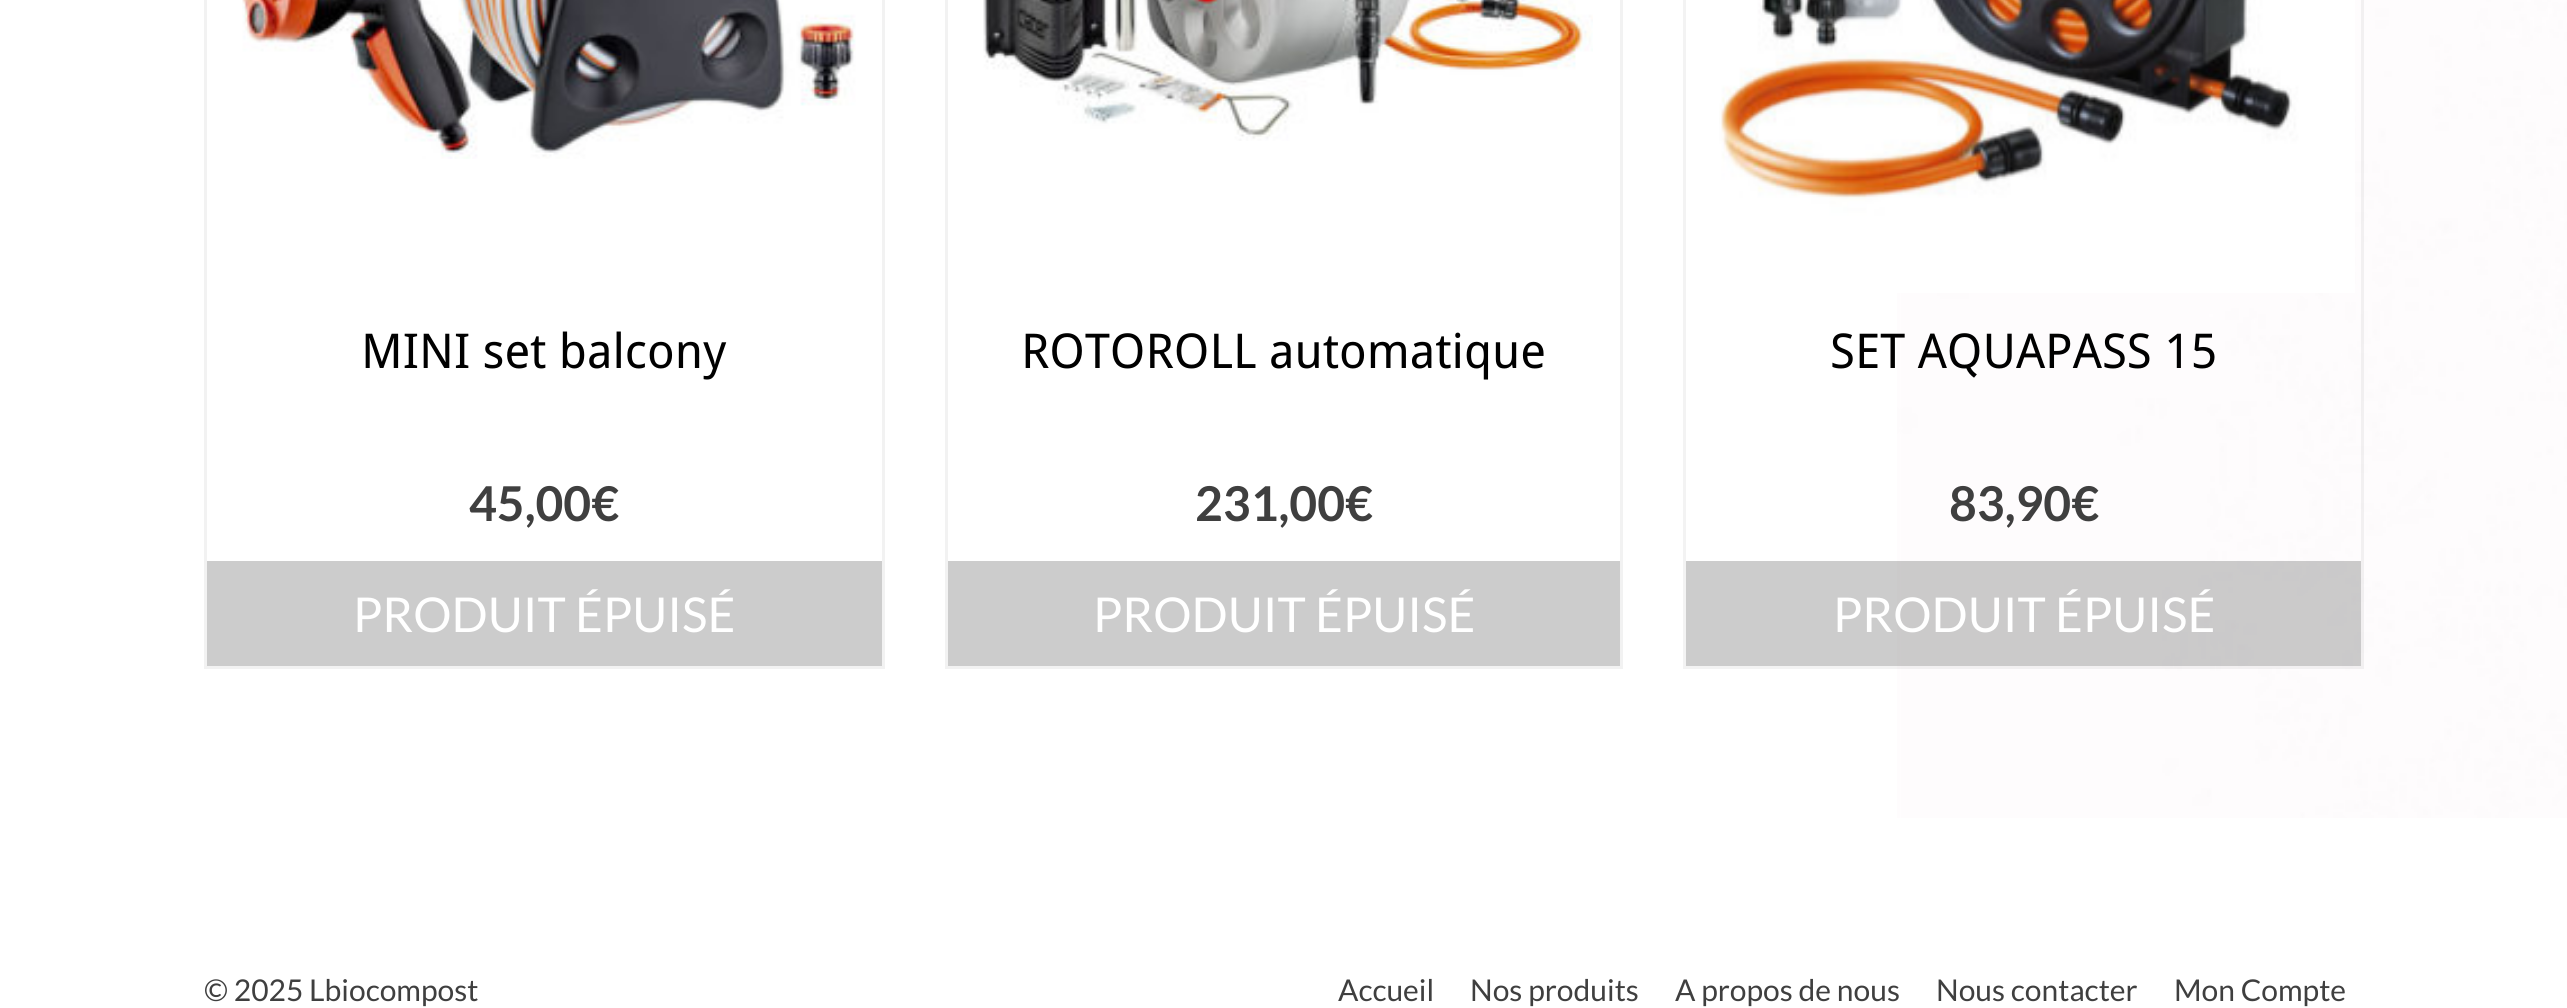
import math
import cairocffi as cairo

surface = cairo.ImageSurface(cairo.FORMAT_RGB24, 2567, 1008)
cr = cairo.Context(surface)
options = cairo.FontOptions()
options.set_hint_metrics(cairo.HINT_METRICS_OFF)
options.set_hint_style(cairo.HINT_STYLE_NONE)
cr.set_font_options(options)
cr.set_miter_limit(4)


def use_color(code):
    cr.set_source_rgb(*(v / 255 for v in bytes.fromhex(code[-6:])))


def picture(path, x, y, w, h):
    cr.save()
    cr.set_source_surface(cairo.ImageSurface.create_from_png(path), x, y)
    cr.rectangle(x, y, w, h)
    cr.fill()
    cr.restore()


use_color("#ffffff")
cr.paint()
picture("img1.png", 1897, 0, 670, 818)
cr.rectangle(205.5, -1.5, 678, 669)
use_color("#f2f2f2")
cr.set_line_width(3)
cr.stroke()
picture("img2.png", 242, 0, 614, 159)
cr.select_font_face("Droid Sans")
cr.set_font_size(48)
use_color("#000000")
cr.move_to(361, 368)
cr.show_text("MINI set balcony")
cr.select_font_face("Lato", cairo.FONT_SLANT_NORMAL, cairo.FONT_WEIGHT_BOLD)
use_color("#3f3f3f")
cr.move_to(469, 521)
cr.show_text("45,00€")
use_color("#cccccc")
cr.rectangle(207, 561, 675, 105)
cr.fill()
cr.select_font_face("Lato")
use_color("#ffffff")
cr.move_to(353, 632)
cr.show_text("PRODUIT ÉPUISÉ")
cr.rectangle(946.5, -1.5, 675, 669)
use_color("#f2f2f2")
cr.stroke()
picture("img3.png", 983, 0, 610, 141)
cr.select_font_face("Droid Sans")
use_color("#000000")
cr.move_to(1021, 368)
cr.show_text("ROTOROLL automatique")
cr.select_font_face("Lato", cairo.FONT_SLANT_NORMAL, cairo.FONT_WEIGHT_BOLD)
use_color("#3f3f3f")
cr.move_to(1195, 521)
cr.show_text("231,00€")
use_color("#cccccc")
cr.rectangle(948, 561, 672, 105)
cr.fill()
cr.select_font_face("Lato")
use_color("#ffffff")
cr.move_to(1093, 632)
cr.show_text("PRODUIT ÉPUISÉ")
cr.rectangle(1684.5, -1.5, 678, 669)
cr.set_source_rgba(0, 0, 0, 0.05)
cr.stroke()
picture("img4.png", 1719, 0, 636, 293)
cr.select_font_face("Droid Sans")
use_color("#000000")
cr.move_to(1830, 368)
cr.show_text("SET AQUAPASS 15")
cr.select_font_face("Lato", cairo.FONT_SLANT_NORMAL, cairo.FONT_WEIGHT_BOLD)
use_color("#3f3f3f")
cr.move_to(1949, 521)
cr.show_text("83,90€")
cr.set_source_rgba(0, 0, 0, 0.2)
cr.rectangle(1686, 561, 675, 105)
cr.fill()
cr.select_font_face("Lato")
use_color("#ffffff")
cr.move_to(1833, 632)
cr.show_text("PRODUIT ÉPUISÉ")
cr.set_font_size(30)
use_color("#3f3f3f")
cr.move_to(204, 1001)
cr.show_text("© 2025 Lbiocompost")
cr.move_to(1338, 1001)
cr.show_text("Accueil")
cr.move_to(1470, 1001)
cr.show_text("Nos produits")
cr.move_to(1675, 1001)
cr.show_text("A propos de nous")
cr.move_to(1936, 1001)
cr.show_text("Nous contacter")
cr.move_to(2174, 1001)
cr.show_text("Mon Compte")
surface.write_to_png("result.png")
